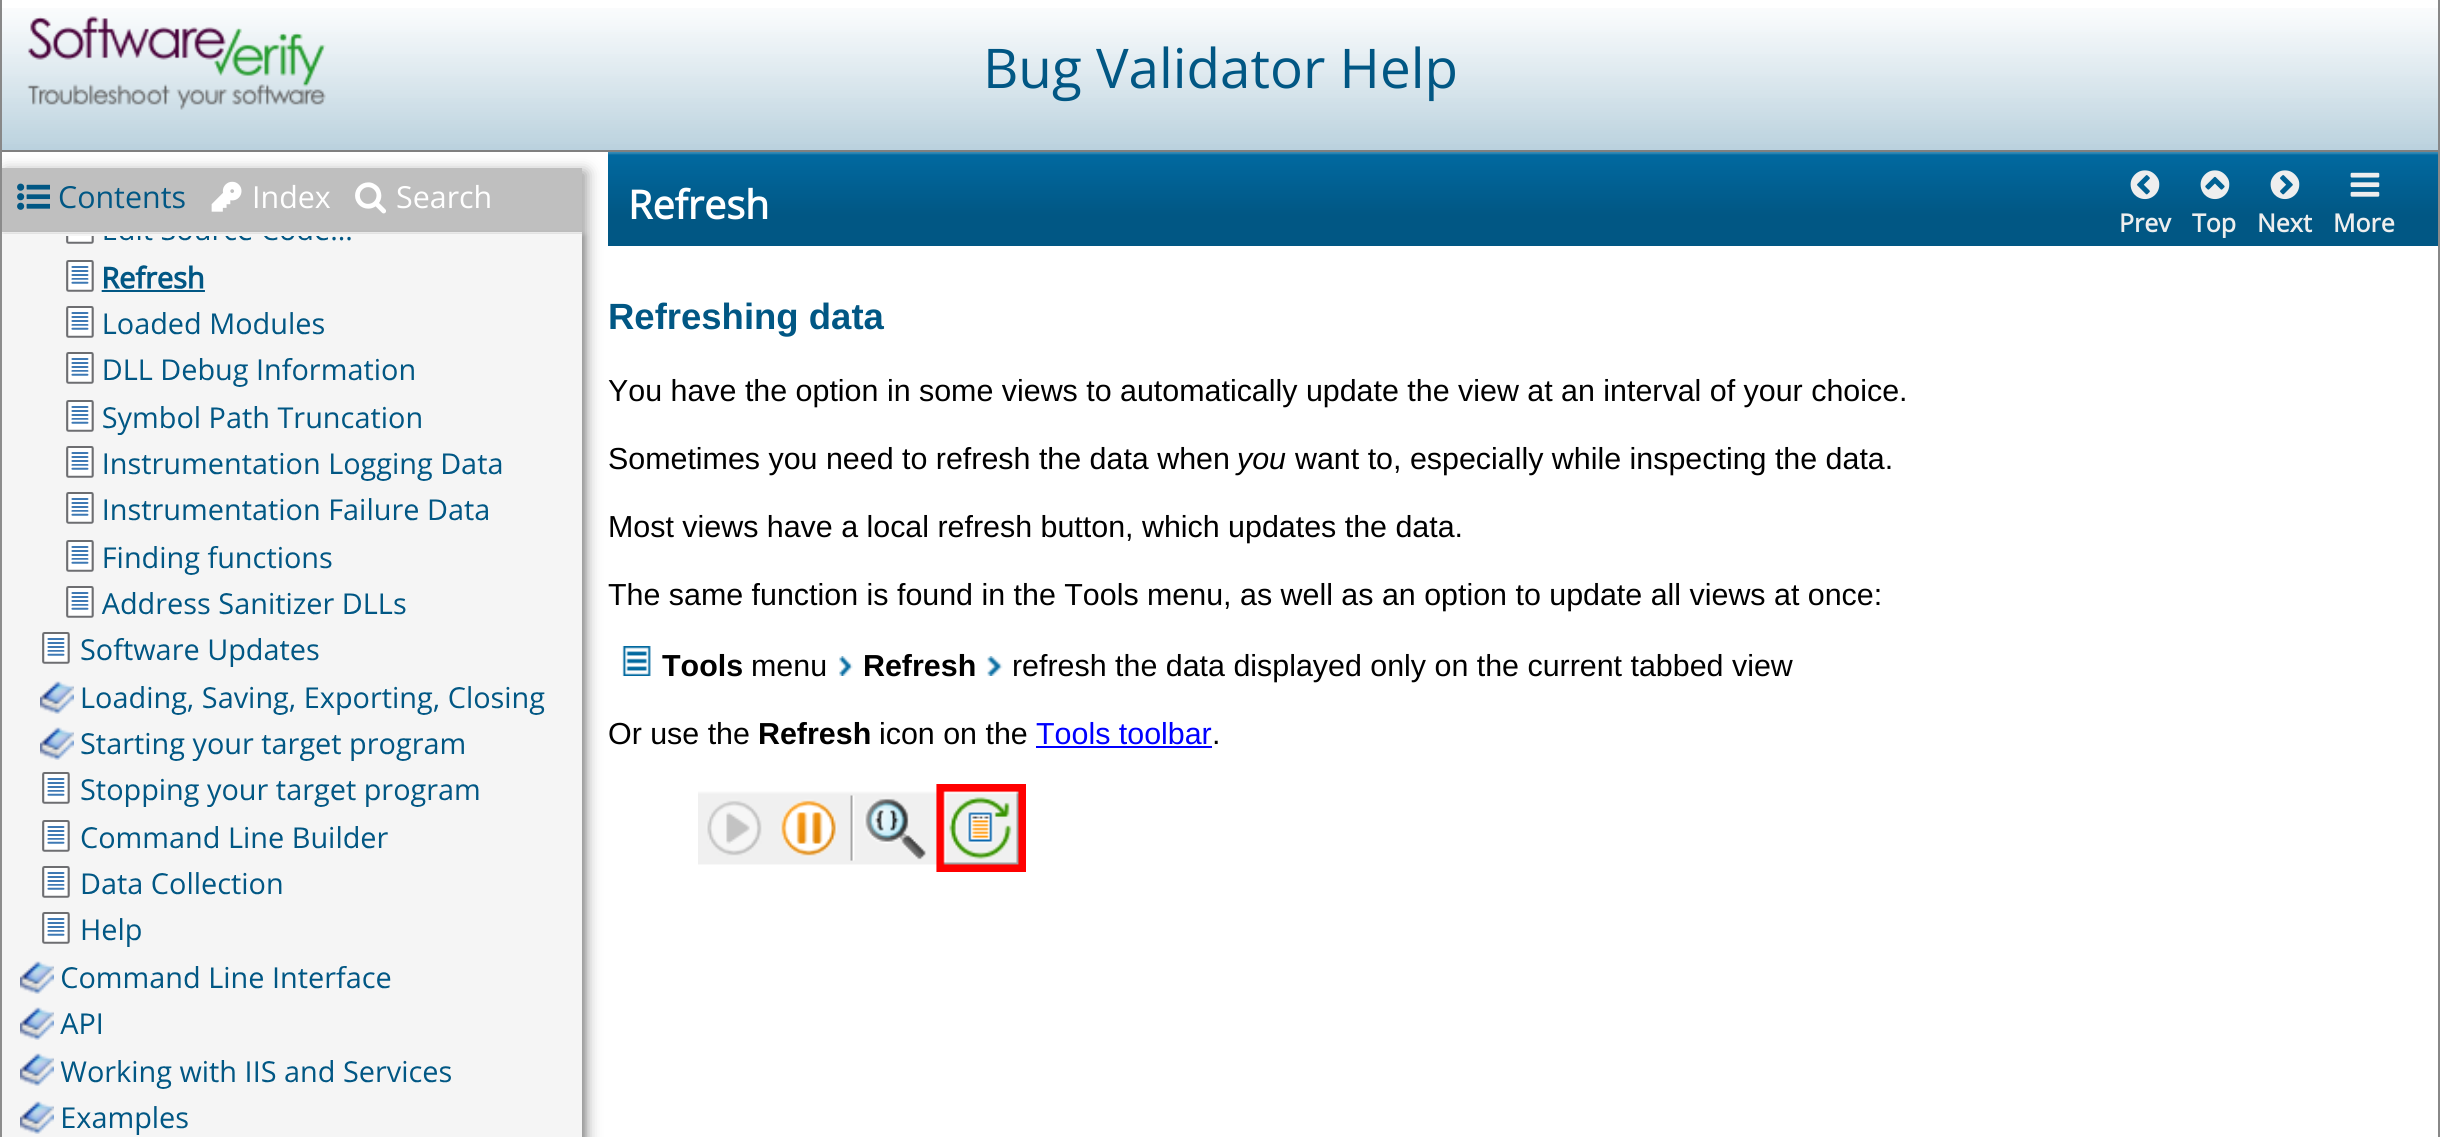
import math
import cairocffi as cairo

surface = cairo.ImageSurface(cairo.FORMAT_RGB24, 2440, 1137)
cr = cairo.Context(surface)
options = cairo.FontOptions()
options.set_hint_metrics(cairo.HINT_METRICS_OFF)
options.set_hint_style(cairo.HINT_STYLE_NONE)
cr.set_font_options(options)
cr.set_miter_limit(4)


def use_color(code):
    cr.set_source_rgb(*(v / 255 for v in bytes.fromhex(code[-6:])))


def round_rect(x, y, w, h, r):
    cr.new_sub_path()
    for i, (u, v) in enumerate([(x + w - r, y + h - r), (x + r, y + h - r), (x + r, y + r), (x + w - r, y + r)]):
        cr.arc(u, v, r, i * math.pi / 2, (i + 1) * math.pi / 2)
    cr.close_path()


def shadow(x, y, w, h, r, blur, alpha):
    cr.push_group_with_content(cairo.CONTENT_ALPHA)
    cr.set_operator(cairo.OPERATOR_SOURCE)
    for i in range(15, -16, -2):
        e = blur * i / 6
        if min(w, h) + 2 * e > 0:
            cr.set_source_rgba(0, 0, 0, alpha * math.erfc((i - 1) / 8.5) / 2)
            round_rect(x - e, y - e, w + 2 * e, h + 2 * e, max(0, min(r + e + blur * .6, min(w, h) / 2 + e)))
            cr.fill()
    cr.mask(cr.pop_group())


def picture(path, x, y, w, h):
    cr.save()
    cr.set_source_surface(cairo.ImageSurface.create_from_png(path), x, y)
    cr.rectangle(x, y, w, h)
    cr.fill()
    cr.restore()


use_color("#ffffff")
cr.paint()
use_color("#888888")
cr.rectangle(2438, 0, 2, 1137)
cr.fill()
cr.rectangle(0, 0, 2, 1137)
cr.fill()
picture("img1.png", 2, 8, 2436, 142)
picture("img2.png", 27, 16, 299, 94)
use_color("#808080")
cr.rectangle(2, 150, 2436, 2)
cr.fill()
cr.select_font_face("Open Sans")
cr.set_font_size(54.75)
use_color("#015784")
cr.move_to(983, 88)
cr.show_text("Bug Validator Help")
picture("img7.png", 608, 152, 516, 94)
use_color("#959595")
shadow(6, 172, 580, 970, 0, 7.5, 1)
use_color("#f5f5f5")
cr.rectangle(2, 232, 580, 905)
cr.fill()
use_color("#bfbfbf")
cr.rectangle(2, 168, 580, 64)
cr.fill()
picture("img3.png", 17, 183, 33, 27)
cr.set_font_size(30.4)
use_color("#015784")
cr.move_to(58, 208)
cr.show_text("Contents")
picture("img4.png", 211, 181, 31, 31)
use_color("#ffffff")
cr.move_to(252, 208)
cr.show_text("Index")
picture("img5.png", 355, 182, 31, 32)
cr.move_to(396, 208)
cr.show_text("Search")
cr.save()
cr.set_fill_rule(cairo.FILL_RULE_EVEN_ODD)
cr.new_path()
cr.move_to(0, 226)
cr.line_to(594, 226)
cr.line_to(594, 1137)
cr.line_to(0, 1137)
cr.close_path()
cr.move_to(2, 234)
cr.line_to(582, 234)
cr.line_to(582, 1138)
cr.line_to(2, 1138)
cr.close_path()
cr.clip()
use_color("#959595")
shadow(4, 236, 580, 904, 0, 3, 1)
cr.restore()
picture("img6.png", 20, 236, 525, 899)
cr.select_font_face("Open Sans", cairo.FONT_SLANT_NORMAL, cairo.FONT_WEIGHT_BOLD)
cr.set_font_size(39.5)
cr.move_to(628, 219)
cr.show_text("Refresh")
picture("img8.png", 1124, 152, 1314, 94)
picture("img9.png", 2130, 170, 30, 30)
cr.set_font_size(25)
use_color("#eeeeee")
cr.move_to(2119, 232)
cr.show_text("Prev")
picture("img10.png", 2200, 170, 30, 30)
cr.move_to(2192, 232)
cr.show_text("Top")
picture("img11.png", 2270, 170, 30, 30)
cr.move_to(2257, 232)
cr.show_text("Next")
picture("img12.png", 2350, 172, 30, 25)
cr.move_to(2333, 232)
cr.show_text("More")
cr.select_font_face("Liberation Sans", cairo.FONT_SLANT_NORMAL, cairo.FONT_WEIGHT_BOLD)
cr.set_font_size(36.5)
use_color("#015784")
cr.move_to(608, 329)
cr.show_text("Refreshing data")
cr.select_font_face("Liberation Sans")
cr.set_font_size(30.4)
use_color("#000000")
cr.move_to(608, 401)
cr.show_text("You have the option in some views to automatically update the view at an interval of your choice.")
cr.move_to(608, 469)
cr.show_text("Sometimes you need to refresh the data when")
cr.select_font_face("Liberation Sans", cairo.FONT_SLANT_ITALIC)
cr.move_to(1237, 469)
cr.show_text("you")
cr.select_font_face("Liberation Sans")
cr.move_to(1295, 469)
cr.show_text("want to, especially while inspecting the data.")
cr.move_to(608, 537)
cr.show_text("Most views have a local refresh button, which updates the data.")
cr.move_to(608, 605)
cr.show_text("The same function is found in the Tools menu, as well as an option to update all views at once:")
picture("img13.png", 622, 646, 29, 30)
cr.select_font_face("Liberation Sans", cairo.FONT_SLANT_NORMAL, cairo.FONT_WEIGHT_BOLD)
cr.move_to(662, 676)
cr.show_text("Tools")
cr.select_font_face("Liberation Sans")
cr.move_to(751, 676)
cr.show_text("menu")
picture("img14.png", 839, 656, 14, 20)
cr.select_font_face("Liberation Sans", cairo.FONT_SLANT_NORMAL, cairo.FONT_WEIGHT_BOLD)
cr.move_to(863, 676)
cr.show_text("Refresh")
picture("img15.png", 987, 656, 16, 20)
cr.select_font_face("Liberation Sans")
cr.move_to(1012, 676)
cr.show_text("refresh the data displayed only on the current tabbed view")
cr.move_to(608, 744)
cr.show_text("Or use the")
cr.select_font_face("Liberation Sans", cairo.FONT_SLANT_NORMAL, cairo.FONT_WEIGHT_BOLD)
cr.move_to(758, 744)
cr.show_text("Refresh")
cr.select_font_face("Liberation Sans")
cr.move_to(879, 744)
cr.show_text("icon on the")
use_color("#0000ff")
cr.move_to(1036, 744)
cr.show_text("Tools toolbar")
cr.rectangle(1036, 746, 176, 2)
cr.fill()
use_color("#000000")
cr.move_to(1212, 744)
cr.show_text(".")
picture("img16.png", 698, 784, 328, 88)
surface.write_to_png("result.png")
